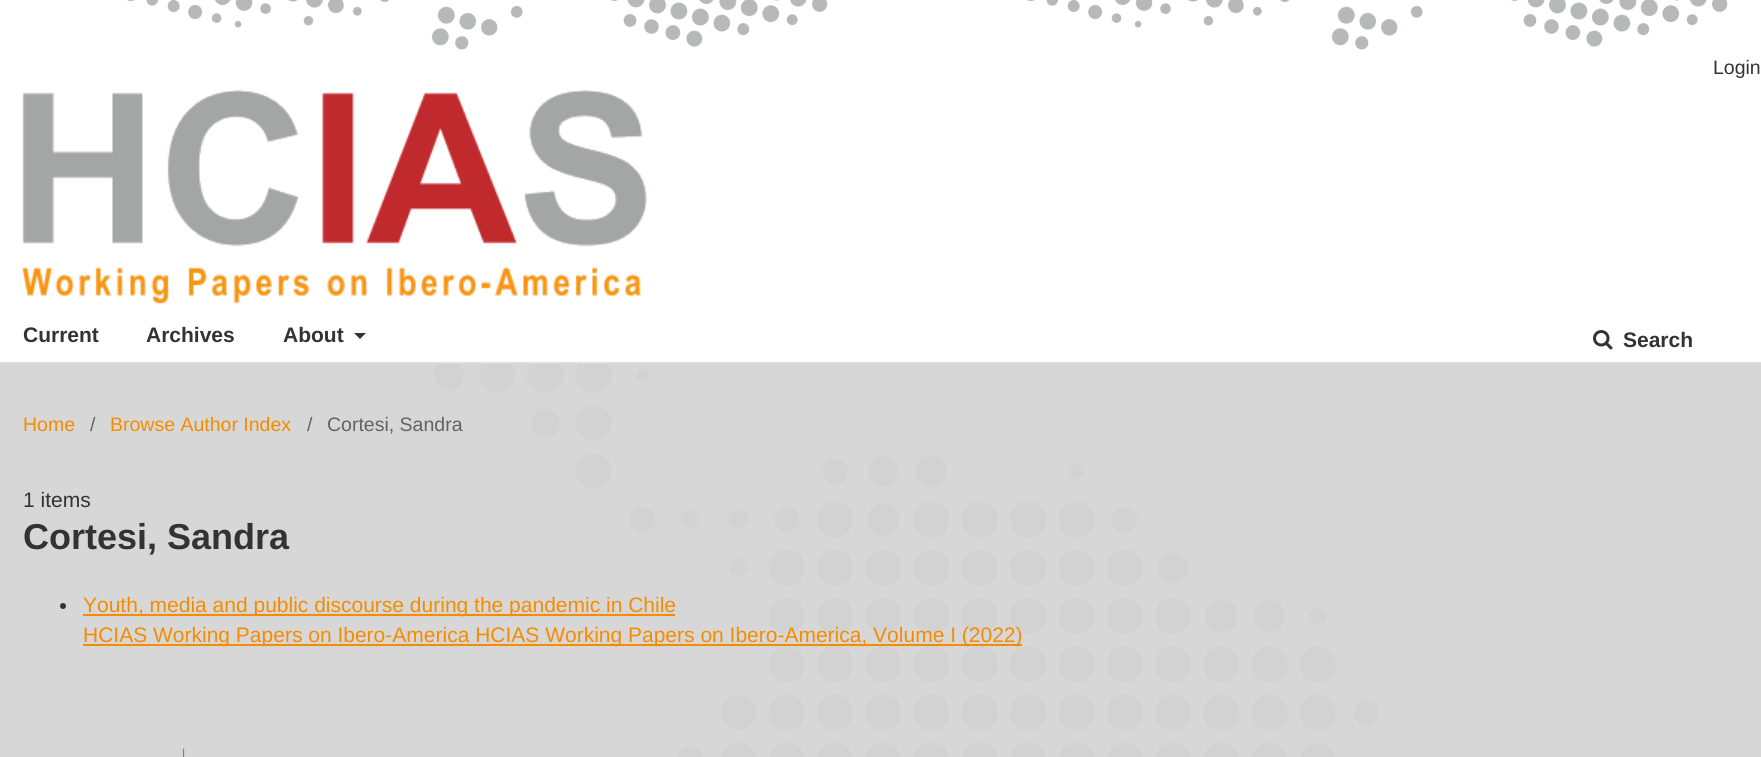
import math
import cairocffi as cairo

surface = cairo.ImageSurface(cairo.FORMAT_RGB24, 1761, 757)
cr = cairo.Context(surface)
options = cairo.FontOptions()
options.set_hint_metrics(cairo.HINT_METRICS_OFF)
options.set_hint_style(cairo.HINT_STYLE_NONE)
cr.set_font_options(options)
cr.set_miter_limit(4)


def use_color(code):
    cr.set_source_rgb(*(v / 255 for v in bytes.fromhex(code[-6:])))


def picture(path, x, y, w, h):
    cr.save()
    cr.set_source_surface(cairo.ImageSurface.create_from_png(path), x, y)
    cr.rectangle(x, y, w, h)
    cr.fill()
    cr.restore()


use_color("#d7d7d7")
cr.paint()
picture("img1.png", 434, 364, 944, 393)
use_color("#ffffff")
cr.rectangle(0, 0, 1761, 362)
cr.fill()
picture("img2.png", 127, 0, 1601, 50)
use_color("#dddddd")
cr.rectangle(0, 362, 1761, 2)
cr.fill()
cr.select_font_face("Liberation Sans")
cr.set_font_size(19.5)
use_color("#333333")
cr.move_to(1713, 74)
cr.show_text("Login")
cr.select_font_face("Liberation Sans", cairo.FONT_SLANT_NORMAL, cairo.FONT_WEIGHT_BOLD)
cr.set_font_size(21)
cr.move_to(23, 342)
cr.show_text("Current")
cr.move_to(146, 342)
cr.show_text("Archives")
cr.move_to(283, 342)
cr.show_text("About")
cr.new_path()
cr.move_to(354, 333)
cr.line_to(366, 333)
cr.line_to(360, 339)
cr.close_path()
cr.fill()
picture("img3.png", 1593, 330, 20, 20)
cr.move_to(1623, 347)
cr.show_text("Search")
picture("img4.png", 22, 90, 625, 214)
cr.select_font_face("Liberation Sans")
cr.set_font_size(19.5)
use_color("#f58c00")
cr.move_to(23, 431)
cr.show_text("Home")
use_color("#636363")
cr.move_to(90, 431)
cr.show_text("/")
use_color("#f58c00")
cr.move_to(110, 431)
cr.show_text("Browse Author Index")
use_color("#636363")
cr.move_to(307, 431)
cr.show_text("/")
cr.move_to(327, 431)
cr.show_text("Cortesi, Sandra")
cr.set_font_size(21)
use_color("#333333")
cr.move_to(23, 507)
cr.show_text("1 items")
cr.select_font_face("Liberation Sans", cairo.FONT_SLANT_NORMAL, cairo.FONT_WEIGHT_BOLD)
cr.set_font_size(36)
cr.move_to(23, 549)
cr.show_text("Cortesi, Sandra")
cr.new_path()
cr.arc(63, 606, 3, 0, 2 * math.pi)
cr.fill()
use_color("#f58c00")
cr.rectangle(83, 614, 592, 2)
cr.fill()
cr.select_font_face("Liberation Sans")
cr.set_font_size(21)
cr.move_to(83, 612)
cr.show_text("Youth, media and public discourse during the pandemic in Chile")
cr.rectangle(83, 644, 939, 2)
cr.fill()
cr.move_to(83, 642)
cr.show_text("HCIAS Working Papers on Ibero-America HCIAS Working Papers on Ibero-America, Volume I (2022)")
picture("img5.png", 183, 748, 2, 9)
surface.write_to_png("result.png")
